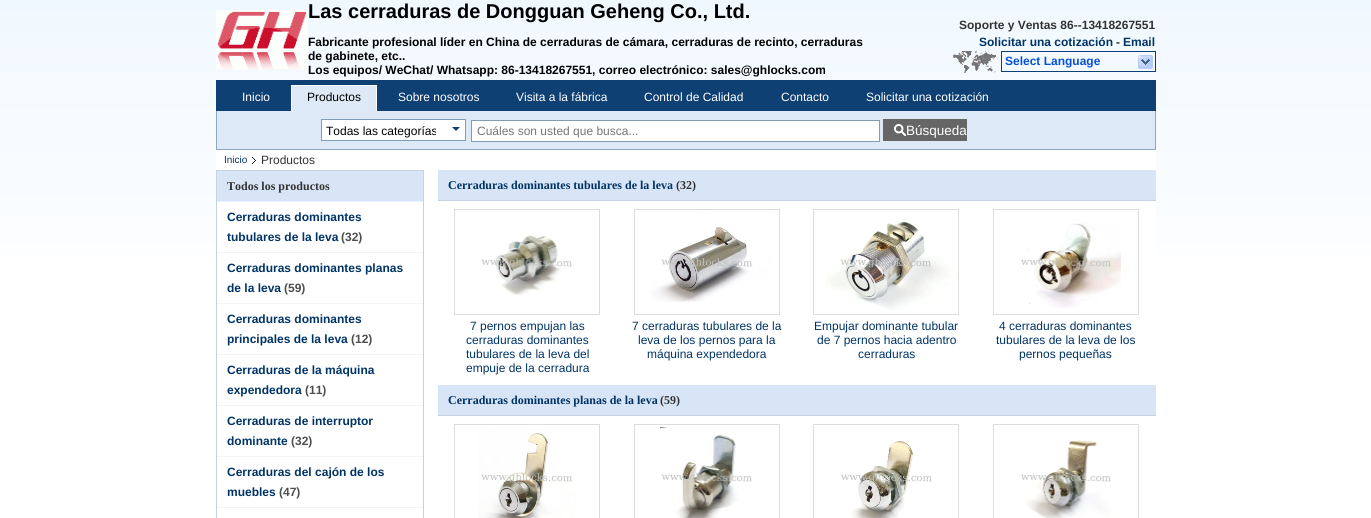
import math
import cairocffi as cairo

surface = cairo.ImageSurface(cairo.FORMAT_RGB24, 1371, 518)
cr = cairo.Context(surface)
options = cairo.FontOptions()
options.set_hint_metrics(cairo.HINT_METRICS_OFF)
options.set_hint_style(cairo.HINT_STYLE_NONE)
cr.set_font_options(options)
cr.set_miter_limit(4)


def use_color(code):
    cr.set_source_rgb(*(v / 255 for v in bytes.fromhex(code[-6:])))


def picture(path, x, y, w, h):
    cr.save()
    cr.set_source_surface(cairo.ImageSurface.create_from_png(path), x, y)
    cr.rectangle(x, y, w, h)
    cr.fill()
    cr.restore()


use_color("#ffffff")
cr.paint()
gradient = cairo.LinearGradient(685, 0, 686, 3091)
gradient.add_color_stop_rgba(0, 0.941, 0.973, 1, 1)
gradient.add_color_stop_rgba(0.1, 1, 1, 1, 1)
gradient.add_color_stop_rgba(1, 1, 1, 1, 1)
cr.set_source(gradient)
cr.rectangle(0, 0, 1371, 258)
cr.fill()
picture("img1.png", 216, 10, 92, 60)
cr.select_font_face("Liberation Sans", cairo.FONT_SLANT_NORMAL, cairo.FONT_WEIGHT_BOLD)
cr.set_font_size(20)
use_color("#000000")
cr.move_to(308, 18)
cr.show_text("Las cerraduras de Dongguan Geheng Co., Ltd.")
cr.set_font_size(12)
cr.move_to(308, 46)
cr.show_text("Fabricante profesional líder en China de cerraduras de cámara, cerraduras de recinto, cerraduras")
cr.move_to(308, 60)
cr.show_text("de gabinete, etc..")
cr.move_to(308, 74)
cr.show_text("Los equipos/ WeChat/ Whatsapp: 86-13418267551, correo electrónico: sales@ghlocks.com")
use_color("#333333")
cr.move_to(959, 29)
cr.show_text("Soporte y Ventas 86--13418267551")
use_color("#003366")
cr.move_to(979, 46)
cr.show_text("Solicitar una cotización")
use_color("#333333")
cr.move_to(1116, 46)
cr.show_text("-")
use_color("#003366")
cr.move_to(1123, 46)
cr.show_text("Email")
picture("img2.png", 953, 51, 43, 22)
cr.rectangle(1001.5, 51.5, 154, 20)
use_color("#0e4074")
cr.set_line_width(1)
cr.stroke()
use_color("#0750d9")
cr.move_to(1005, 65)
cr.show_text("Select Language")
picture("img3.png", 1138, 55, 15, 14)
use_color("#8ea6c1")
cr.rectangle(1155, 110, 1, 40)
cr.fill()
cr.rectangle(216, 149, 940, 1)
cr.fill()
cr.rectangle(216, 110, 1, 40)
cr.fill()
use_color("#0e4074")
cr.rectangle(216, 80, 940, 31)
cr.fill()
cr.select_font_face("Liberation Sans")
use_color("#ffffff")
cr.move_to(242, 101)
cr.show_text("Inicio")
use_color("#dde9f6")
cr.rectangle(292, 86, 84, 25)
cr.fill()
cr.rectangle(217, 111, 938, 38)
cr.fill()
cr.save()
cr.rectangle(216, 80, 940, 31)
cr.clip()
cr.rectangle(291.5, 85.5, 85, 39)
use_color("#ffffff")
cr.stroke()
cr.restore()
use_color("#000000")
cr.move_to(307, 101)
cr.show_text("Productos")
use_color("#ffffff")
cr.move_to(398, 101)
cr.show_text("Sobre nosotros")
cr.move_to(516, 101)
cr.show_text("Visita a la fábrica")
cr.move_to(644, 101)
cr.show_text("Control de Calidad")
cr.move_to(781, 101)
cr.show_text("Contacto")
cr.move_to(866, 101)
cr.show_text("Solicitar una cotización")
cr.rectangle(321.5, 119.5, 144, 21)
use_color("#7f9db9")
cr.stroke()
use_color("#ffffff")
cr.rectangle(322, 120, 143, 20)
cr.fill()
cr.save()
cr.rectangle(326, 121, 110, 19)
cr.clip()
use_color("#000000")
cr.move_to(326, 135)
cr.show_text("Todas las categorías")
cr.restore()
use_color("#0e4074")
cr.new_path()
cr.move_to(452, 127)
cr.line_to(460, 127)
cr.line_to(456, 131)
cr.close_path()
cr.fill()
use_color("#ffffff")
cr.rectangle(471.5, 120.5, 408, 21)
cr.fill_preserve()
use_color("#7f9db9")
cr.stroke()
use_color("#757575")
cr.move_to(477, 135)
cr.show_text("Cuáles son usted que busca...")
use_color("#666666")
cr.rectangle(883, 119, 84, 22)
cr.fill()
cr.set_font_size(13.5)
use_color("#ffffff")
cr.move_to(906, 135)
cr.show_text("Búsqueda")
use_color("#666666")
cr.rectangle(906, 126, 1, 9)
cr.fill()
picture("img4.png", 894, 124, 12, 12)
use_color("#ffffff")
cr.rectangle(216, 150, 940, 108)
cr.fill()
cr.set_font_size(10)
use_color("#003366")
cr.move_to(224, 163)
cr.show_text("Inicio")
picture("img5.png", 252, 157, 4, 7)
cr.set_font_size(12)
use_color("#333333")
cr.move_to(261, 164)
cr.show_text("Productos")
cr.rectangle(216.5, 170.5, 207, 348)
use_color("#c6d2e0")
cr.stroke()
use_color("#d8e5f6")
cr.rectangle(217, 171, 206, 30)
cr.fill()
use_color("#e7f3ff")
cr.rectangle(217, 201, 206, 1)
cr.fill()
cr.select_font_face("Liberation Serif", cairo.FONT_SLANT_NORMAL, cairo.FONT_WEIGHT_BOLD)
use_color("#333333")
cr.move_to(227, 190)
cr.show_text("Todos los productos")
use_color("#f0f4f6")
cr.rectangle(217, 252, 206, 1)
cr.fill()
cr.select_font_face("Liberation Sans", cairo.FONT_SLANT_NORMAL, cairo.FONT_WEIGHT_BOLD)
use_color("#003366")
cr.move_to(227, 221)
cr.show_text("Cerraduras dominantes")
cr.move_to(227, 241)
cr.show_text("tubulares de la leva")
use_color("#4e4e4e")
cr.move_to(341, 241)
cr.show_text("(32)")
use_color("#f0f4f6")
cr.rectangle(217, 303, 206, 1)
cr.fill()
use_color("#003366")
cr.move_to(227, 272)
cr.show_text("Cerraduras dominantes planas")
cr.move_to(227, 292)
cr.show_text("de la leva")
use_color("#4e4e4e")
cr.move_to(284, 292)
cr.show_text("(59)")
use_color("#f0f4f6")
cr.rectangle(217, 354, 206, 1)
cr.fill()
use_color("#003366")
cr.move_to(227, 323)
cr.show_text("Cerraduras dominantes")
cr.move_to(227, 343)
cr.show_text("principales de la leva")
use_color("#4e4e4e")
cr.move_to(351, 343)
cr.show_text("(12)")
use_color("#f0f4f6")
cr.rectangle(217, 405, 206, 1)
cr.fill()
use_color("#003366")
cr.move_to(227, 374)
cr.show_text("Cerraduras de la máquina")
cr.move_to(227, 394)
cr.show_text("expendedora")
use_color("#4e4e4e")
cr.move_to(305, 394)
cr.show_text("(11)")
use_color("#f0f4f6")
cr.rectangle(217, 456, 206, 1)
cr.fill()
use_color("#003366")
cr.move_to(227, 425)
cr.show_text("Cerraduras de interruptor")
cr.move_to(227, 445)
cr.show_text("dominante")
use_color("#4e4e4e")
cr.move_to(291, 445)
cr.show_text("(32)")
use_color("#f0f4f6")
cr.rectangle(217, 507, 206, 1)
cr.fill()
use_color("#003366")
cr.move_to(227, 476)
cr.show_text("Cerraduras del cajón de los")
cr.move_to(227, 496)
cr.show_text("muebles")
use_color("#4e4e4e")
cr.move_to(279, 496)
cr.show_text("(47)")
use_color("#d8e5f6")
cr.rectangle(438, 170, 718, 30)
cr.fill()
use_color("#c6d2e0")
cr.rectangle(438, 200, 718, 1)
cr.fill()
cr.select_font_face("Liberation Serif", cairo.FONT_SLANT_NORMAL, cairo.FONT_WEIGHT_BOLD)
use_color("#003366")
cr.move_to(448, 189)
cr.show_text("Cerraduras dominantes tubulares de la leva")
use_color("#333333")
cr.move_to(676, 189)
cr.show_text("(32)")
cr.rectangle(454.5, 209.5, 145, 105)
use_color("#dcdcdc")
cr.stroke()
picture("img6.png", 481, 235, 91, 61)
cr.select_font_face("Liberation Sans")
use_color("#003366")
cr.move_to(470, 330)
cr.show_text("7 pernos empujan las")
cr.move_to(466, 344)
cr.show_text("cerraduras dominantes")
cr.move_to(466, 358)
cr.show_text("tubulares de la leva del")
cr.move_to(466, 372)
cr.show_text("empuje de la cerradura")
cr.rectangle(634.5, 209.5, 145, 105)
use_color("#dcdcdc")
cr.stroke()
picture("img7.png", 650, 212, 123, 90)
use_color("#003366")
cr.move_to(632, 330)
cr.show_text("7 cerraduras tubulares de la")
cr.move_to(638, 344)
cr.show_text("leva de los pernos para la")
cr.move_to(647, 358)
cr.show_text("máquina expendedora")
cr.rectangle(813.5, 209.5, 145, 105)
use_color("#dcdcdc")
cr.stroke()
picture("img8.png", 826, 221, 127, 89)
use_color("#003366")
cr.move_to(814, 330)
cr.show_text("Empujar dominante tubular")
cr.move_to(817, 344)
cr.show_text("de 7 pernos hacia adentro")
cr.move_to(858, 358)
cr.show_text("cerraduras")
cr.rectangle(993.5, 209.5, 145, 105)
use_color("#dcdcdc")
cr.stroke()
picture("img9.png", 1021, 223, 100, 85)
use_color("#003366")
cr.move_to(999, 330)
cr.show_text("4 cerraduras dominantes")
cr.move_to(996, 344)
cr.show_text("tubulares de la leva de los")
cr.move_to(1019, 358)
cr.show_text("pernos pequeñas")
use_color("#d8e5f6")
cr.rectangle(438, 385, 718, 30)
cr.fill()
use_color("#c6d2e0")
cr.rectangle(438, 415, 718, 1)
cr.fill()
cr.select_font_face("Liberation Serif", cairo.FONT_SLANT_NORMAL, cairo.FONT_WEIGHT_BOLD)
use_color("#003366")
cr.move_to(448, 404)
cr.show_text("Cerraduras dominantes planas de la leva")
use_color("#333333")
cr.move_to(660, 404)
cr.show_text("(59)")
cr.rectangle(454.5, 424.5, 145, 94)
use_color("#dcdcdc")
cr.stroke()
picture("img10.png", 478, 427, 98, 91)
cr.rectangle(634.5, 424.5, 145, 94)
cr.stroke()
picture("img11.png", 660, 427, 92, 91)
cr.rectangle(813.5, 424.5, 145, 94)
cr.stroke()
picture("img12.png", 841, 441, 91, 77)
cr.rectangle(993.5, 424.5, 145, 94)
cr.stroke()
picture("img13.png", 1021, 440, 90, 78)
surface.write_to_png("result.png")
